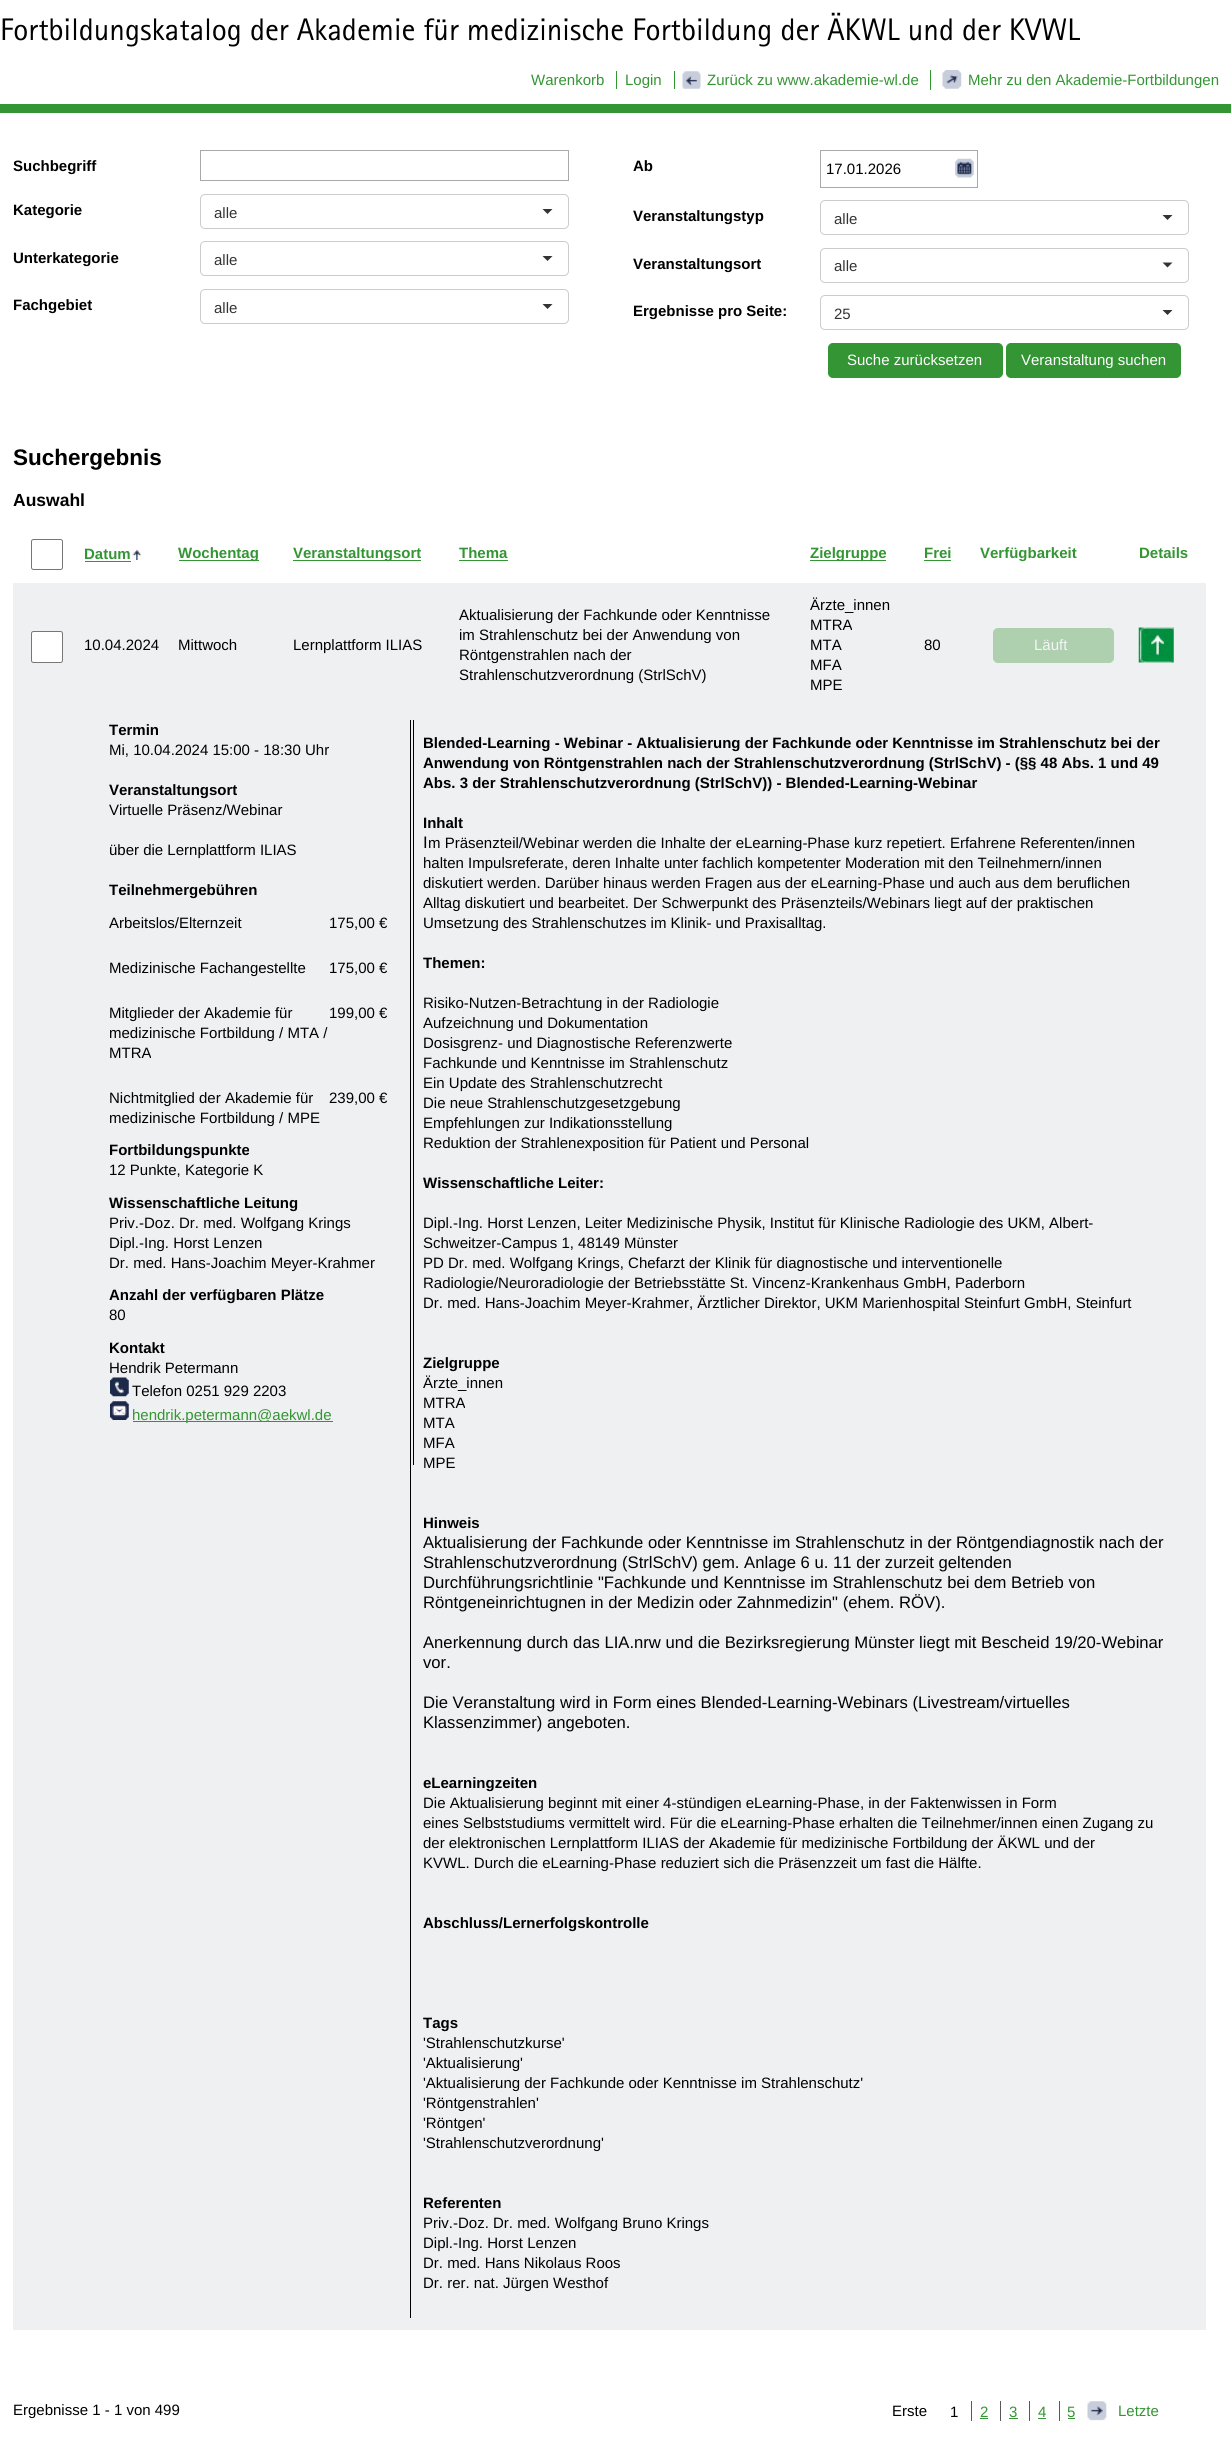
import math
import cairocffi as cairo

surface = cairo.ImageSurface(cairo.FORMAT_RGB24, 1231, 2444)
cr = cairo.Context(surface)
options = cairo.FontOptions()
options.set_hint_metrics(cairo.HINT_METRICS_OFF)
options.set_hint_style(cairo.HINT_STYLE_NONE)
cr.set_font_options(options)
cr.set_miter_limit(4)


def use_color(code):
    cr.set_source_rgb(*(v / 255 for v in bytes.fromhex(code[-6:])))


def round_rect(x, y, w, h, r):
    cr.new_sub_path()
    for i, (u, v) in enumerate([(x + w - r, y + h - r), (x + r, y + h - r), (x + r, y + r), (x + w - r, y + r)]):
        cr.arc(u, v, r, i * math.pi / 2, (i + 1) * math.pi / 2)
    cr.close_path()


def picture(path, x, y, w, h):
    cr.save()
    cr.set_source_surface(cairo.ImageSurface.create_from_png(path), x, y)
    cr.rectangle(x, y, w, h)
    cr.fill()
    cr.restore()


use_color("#ffffff")
cr.paint()
use_color("#349534")
cr.rectangle(0, 104, 1231, 9)
cr.fill()
cr.select_font_face("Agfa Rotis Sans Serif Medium")
cr.set_font_size(31.25)
use_color("#000000")
cr.move_to(0, 40)
cr.show_text("Fortbildungskatalog der Akademie für medizinische Fortbildung der ÄKWL und der KVWL")
cr.select_font_face("Liberation Sans")
cr.set_font_size(15)
use_color("#349534")
cr.move_to(531, 85)
cr.show_text("Warenkorb")
cr.move_to(625, 85)
cr.show_text("Login")
cr.rectangle(616, 71, 1, 18)
cr.fill()
picture("img1.png", 682, 71, 19, 18)
cr.move_to(707, 85)
cr.show_text("Zurück zu www.akademie-wl.de")
cr.rectangle(674, 71, 1, 18)
cr.fill()
picture("img2.png", 942, 70, 20, 19)
cr.rectangle(930, 70, 1, 20)
cr.fill()
cr.move_to(968, 85)
cr.show_text("Mehr zu den Akademie-Fortbildungen")
cr.select_font_face("Liberation Sans", cairo.FONT_SLANT_NORMAL, cairo.FONT_WEIGHT_BOLD)
use_color("#000000")
cr.move_to(13, 171)
cr.show_text("Suchbegriff")
cr.rectangle(200.5, 150.5, 368, 30)
use_color("#a9aaa8")
cr.set_line_width(1)
cr.stroke()
use_color("#000000")
cr.move_to(13, 215)
cr.show_text("Kategorie")
round_rect(200.5, 194.5, 368, 34, 4.5)
use_color("#cccccc")
cr.stroke()
cr.select_font_face("Liberation Sans")
use_color("#333333")
cr.move_to(214, 218)
cr.show_text("alle")
cr.new_path()
cr.move_to(542.5, 209)
cr.line_to(552.5, 209)
cr.line_to(547.5, 214)
cr.close_path()
cr.fill()
cr.select_font_face("Liberation Sans", cairo.FONT_SLANT_NORMAL, cairo.FONT_WEIGHT_BOLD)
use_color("#000000")
cr.move_to(13, 263)
cr.show_text("Unterkategorie")
round_rect(200.5, 241.5, 368, 34, 4.5)
use_color("#cccccc")
cr.stroke()
cr.select_font_face("Liberation Sans")
use_color("#333333")
cr.move_to(214, 265)
cr.show_text("alle")
cr.new_path()
cr.move_to(542.5, 256)
cr.line_to(552.5, 256)
cr.line_to(547.5, 261)
cr.close_path()
cr.fill()
cr.select_font_face("Liberation Sans", cairo.FONT_SLANT_NORMAL, cairo.FONT_WEIGHT_BOLD)
use_color("#000000")
cr.move_to(13, 310)
cr.show_text("Fachgebiet")
round_rect(200.5, 289.5, 368, 34, 4.5)
use_color("#cccccc")
cr.stroke()
cr.select_font_face("Liberation Sans")
use_color("#333333")
cr.move_to(214, 313)
cr.show_text("alle")
cr.new_path()
cr.move_to(542.5, 304)
cr.line_to(552.5, 304)
cr.line_to(547.5, 309)
cr.close_path()
cr.fill()
cr.select_font_face("Liberation Sans", cairo.FONT_SLANT_NORMAL, cairo.FONT_WEIGHT_BOLD)
use_color("#000000")
cr.move_to(633, 171)
cr.show_text("Ab")
picture("img3.png", 955, 158, 19, 20)
cr.rectangle(820.5, 150.5, 157, 37)
use_color("#a9aaa8")
cr.stroke()
cr.select_font_face("Liberation Sans")
use_color("#000000")
cr.move_to(826, 174)
cr.show_text("17.01.2026")
cr.select_font_face("Liberation Sans", cairo.FONT_SLANT_NORMAL, cairo.FONT_WEIGHT_BOLD)
cr.move_to(633, 221)
cr.show_text("Veranstaltungstyp")
round_rect(820.5, 200.5, 368, 34, 4.5)
use_color("#cccccc")
cr.stroke()
cr.select_font_face("Liberation Sans")
use_color("#333333")
cr.move_to(834, 224)
cr.show_text("alle")
cr.new_path()
cr.move_to(1162.5, 215)
cr.line_to(1172.5, 215)
cr.line_to(1167.5, 220)
cr.close_path()
cr.fill()
cr.select_font_face("Liberation Sans", cairo.FONT_SLANT_NORMAL, cairo.FONT_WEIGHT_BOLD)
use_color("#000000")
cr.move_to(633, 269)
cr.show_text("Veranstaltungsort")
round_rect(820.5, 248.5, 368, 34, 4.5)
use_color("#cccccc")
cr.stroke()
cr.select_font_face("Liberation Sans")
use_color("#333333")
cr.move_to(834, 271)
cr.show_text("alle")
cr.new_path()
cr.move_to(1162.5, 262.5)
cr.line_to(1172.5, 262.5)
cr.line_to(1167.5, 267.5)
cr.close_path()
cr.fill()
cr.select_font_face("Liberation Sans", cairo.FONT_SLANT_NORMAL, cairo.FONT_WEIGHT_BOLD)
use_color("#000000")
cr.move_to(633, 316)
cr.show_text("Ergebnisse pro Seite:")
round_rect(820.5, 295.5, 368, 34, 4.5)
use_color("#cccccc")
cr.stroke()
cr.select_font_face("Liberation Sans")
use_color("#333333")
cr.move_to(834, 319)
cr.show_text("25")
cr.new_path()
cr.move_to(1162.5, 310)
cr.line_to(1172.5, 310)
cr.line_to(1167.5, 315)
cr.close_path()
cr.fill()
use_color("#349534")
round_rect(828.5, 343.5, 174, 34, 4.5)
cr.fill_preserve()
cr.stroke()
use_color("#ffffff")
cr.move_to(847, 365)
cr.show_text("Suche zurücksetzen")
use_color("#349534")
round_rect(1006.5, 343.5, 174, 34, 4.5)
cr.fill_preserve()
cr.stroke()
use_color("#ffffff")
cr.move_to(1021, 365)
cr.show_text("Veranstaltung suchen")
cr.select_font_face("Liberation Sans", cairo.FONT_SLANT_NORMAL, cairo.FONT_WEIGHT_BOLD)
cr.set_font_size(22.5)
use_color("#000000")
cr.move_to(13, 465)
cr.show_text("Suchergebnis")
cr.set_font_size(17.5)
cr.move_to(13, 506)
cr.show_text("Auswahl")
round_rect(31.5, 539.5, 31, 30, 2)
use_color("#767676")
cr.stroke()
cr.set_font_size(15)
use_color("#349534")
cr.move_to(84, 559)
cr.show_text("Datum")
cr.rectangle(85, 561, 46, 1)
cr.fill()
picture("img4.png", 132, 549, 10, 11)
cr.rectangle(179, 560, 80, 1)
cr.fill()
cr.move_to(178, 558)
cr.show_text("Wochentag")
cr.rectangle(293, 560, 128, 1)
cr.fill()
cr.move_to(293, 558)
cr.show_text("Veranstaltungsort")
cr.move_to(459, 558)
cr.show_text("Thema")
cr.rectangle(459, 560, 49, 1)
cr.fill()
cr.rectangle(810, 560, 76, 1)
cr.fill()
cr.move_to(810, 558)
cr.show_text("Zielgruppe")
cr.move_to(924, 558)
cr.show_text("Frei")
cr.rectangle(924, 560, 27, 1)
cr.fill()
cr.move_to(980, 558)
cr.show_text("Verfügbarkeit")
cr.move_to(1139, 558)
cr.show_text("Details")
use_color("#eff0f1")
cr.rectangle(13, 583, 1193, 112)
cr.fill()
use_color("#ffffff")
round_rect(31.5, 631.5, 31, 31, 2)
cr.fill_preserve()
use_color("#767676")
cr.stroke()
cr.select_font_face("Liberation Sans")
use_color("#000000")
cr.move_to(84, 650)
cr.show_text("10.04.2024")
cr.move_to(178, 650)
cr.show_text("Mittwoch")
cr.move_to(293, 650)
cr.show_text("Lernplattform ILIAS")
cr.move_to(459, 620)
cr.show_text("Aktualisierung der Fachkunde oder Kenntnisse")
cr.move_to(459, 640)
cr.show_text("im Strahlenschutz bei der Anwendung von")
cr.move_to(459, 660)
cr.show_text("Röntgenstrahlen nach der")
cr.move_to(459, 680)
cr.show_text("Strahlenschutzverordnung (StrlSchV)")
cr.move_to(810, 610)
cr.show_text("Ärzte_innen")
cr.move_to(810, 630)
cr.show_text("MTRA")
cr.move_to(810, 650)
cr.show_text("MTA")
cr.move_to(810, 670)
cr.show_text("MFA")
cr.move_to(810, 690)
cr.show_text("MPE")
cr.move_to(924, 650)
cr.show_text("80")
use_color("#aed0af")
round_rect(993.5, 628.5, 120, 34, 4.5)
cr.fill_preserve()
cr.stroke()
use_color("#f5f5f6")
cr.move_to(1034, 650)
cr.show_text("Läuft")
picture("img5.png", 1138, 627, 36, 36)
use_color("#eff0f1")
cr.rectangle(13, 695, 1193, 1635)
cr.fill()
use_color("#000000")
cr.rectangle(413, 720, 1, 745)
cr.fill()
cr.select_font_face("Liberation Sans", cairo.FONT_SLANT_NORMAL, cairo.FONT_WEIGHT_BOLD)
cr.move_to(109, 735)
cr.show_text("Termin")
cr.select_font_face("Liberation Sans")
cr.move_to(109, 755)
cr.show_text("Mi, 10.04.2024 15:00 - 18:30 Uhr")
cr.select_font_face("Liberation Sans", cairo.FONT_SLANT_NORMAL, cairo.FONT_WEIGHT_BOLD)
cr.move_to(109, 795)
cr.show_text("Veranstaltungsort")
cr.select_font_face("Liberation Sans")
cr.move_to(109, 815)
cr.show_text("Virtuelle Präsenz/Webinar")
cr.move_to(109, 855)
cr.show_text("über die Lernplattform ILIAS")
cr.select_font_face("Liberation Sans", cairo.FONT_SLANT_NORMAL, cairo.FONT_WEIGHT_BOLD)
cr.move_to(109, 895)
cr.show_text("Teilnehmergebühren")
cr.select_font_face("Liberation Sans")
cr.move_to(109, 928)
cr.show_text("Arbeitslos/Elternzeit")
cr.move_to(329, 928)
cr.show_text("175,00 €")
cr.move_to(109, 973)
cr.show_text("Medizinische Fachangestellte")
cr.move_to(329, 973)
cr.show_text("175,00 €")
cr.move_to(109, 1018)
cr.show_text("Mitglieder der Akademie für")
cr.move_to(109, 1038)
cr.show_text("medizinische Fortbildung / MTA /")
cr.move_to(109, 1058)
cr.show_text("MTRA")
cr.move_to(329, 1018)
cr.show_text("199,00 €")
cr.move_to(109, 1103)
cr.show_text("Nichtmitglied der Akademie für")
cr.move_to(109, 1123)
cr.show_text("medizinische Fortbildung / MPE")
cr.move_to(329, 1103)
cr.show_text("239,00 €")
cr.select_font_face("Liberation Sans", cairo.FONT_SLANT_NORMAL, cairo.FONT_WEIGHT_BOLD)
cr.move_to(109, 1155)
cr.show_text("Fortbildungspunkte")
cr.select_font_face("Liberation Sans")
cr.move_to(109, 1175)
cr.show_text("12 Punkte, Kategorie K")
cr.select_font_face("Liberation Sans", cairo.FONT_SLANT_NORMAL, cairo.FONT_WEIGHT_BOLD)
cr.move_to(109, 1208)
cr.show_text("Wissenschaftliche Leitung")
cr.select_font_face("Liberation Sans")
cr.move_to(109, 1228)
cr.show_text("Priv.-Doz. Dr. med. Wolfgang Krings")
cr.move_to(109, 1248)
cr.show_text("Dipl.-Ing. Horst Lenzen")
cr.move_to(109, 1268)
cr.show_text("Dr. med. Hans-Joachim Meyer-Krahmer")
cr.select_font_face("Liberation Sans", cairo.FONT_SLANT_NORMAL, cairo.FONT_WEIGHT_BOLD)
cr.move_to(109, 1300)
cr.show_text("Anzahl der verfügbaren Plätze")
cr.select_font_face("Liberation Sans")
cr.move_to(109, 1320)
cr.show_text("80")
cr.select_font_face("Liberation Sans", cairo.FONT_SLANT_NORMAL, cairo.FONT_WEIGHT_BOLD)
cr.move_to(109, 1353)
cr.show_text("Kontakt")
cr.select_font_face("Liberation Sans")
cr.move_to(109, 1373)
cr.show_text("Hendrik Petermann")
picture("img6.png", 110, 1377, 19, 20)
cr.move_to(132, 1396)
cr.show_text("Telefon 0251 929 2203")
picture("img7.png", 110, 1401, 19, 19)
use_color("#349534")
cr.rectangle(133, 1421, 200, 1)
cr.fill()
cr.move_to(132, 1420)
cr.show_text("hendrik.petermann@aekwl.de")
use_color("#000000")
cr.rectangle(410, 720, 1, 1598)
cr.fill()
cr.select_font_face("Liberation Sans", cairo.FONT_SLANT_NORMAL, cairo.FONT_WEIGHT_BOLD)
cr.move_to(423, 748)
cr.show_text("Blended-Learning - Webinar - Aktualisierung der Fachkunde oder Kenntnisse im Strahlenschutz bei der")
cr.move_to(423, 768)
cr.show_text("Anwendung von Röntgenstrahlen nach der Strahlenschutzverordnung (StrlSchV) - (§§ 48 Abs. 1 und 49")
cr.move_to(423, 788)
cr.show_text("Abs. 3 der Strahlenschutzverordnung (StrlSchV)) - Blended-Learning-Webinar")
cr.move_to(423, 828)
cr.show_text("Inhalt")
cr.select_font_face("Liberation Sans")
cr.set_font_size(16.65)
cr.move_to(423, 848)
cr.show_text("I")
cr.set_font_size(15)
cr.move_to(428, 848)
cr.show_text("m Präsenzteil/Webinar werden die Inhalte der eLearning-Phase kurz repetiert. Erfahrene Referenten/innen")
cr.move_to(423, 868)
cr.show_text("halten Impulsreferate, deren Inhalte unter fachlich kompetenter Moderation mit den Teilnehmern/innen")
cr.move_to(423, 888)
cr.show_text("diskutiert werden. Darüber hinaus werden Fragen aus der eLearning-Phase und auch aus dem beruflichen")
cr.move_to(423, 908)
cr.show_text("Alltag diskutiert und bearbeitet. Der Schwerpunkt des Präsenzteils/Webinars liegt auf der praktischen")
cr.move_to(423, 928)
cr.show_text("Umsetzung des Strahlenschutzes im Klinik- und Praxisalltag.")
cr.select_font_face("Liberation Sans", cairo.FONT_SLANT_NORMAL, cairo.FONT_WEIGHT_BOLD)
cr.move_to(423, 968)
cr.show_text("Themen:")
cr.select_font_face("Liberation Sans")
cr.move_to(423, 1008)
cr.show_text("Risiko-Nutzen-Betrachtung in der Radiologie")
cr.move_to(423, 1028)
cr.show_text("Aufzeichnung und Dokumentation")
cr.move_to(423, 1048)
cr.show_text("Dosisgrenz- und Diagnostische Referenzwerte")
cr.move_to(423, 1068)
cr.show_text("Fachkunde und Kenntnisse im Strahlenschutz")
cr.move_to(423, 1088)
cr.show_text("Ein Update des Strahlenschutzrecht")
cr.move_to(423, 1108)
cr.show_text("Die neue Strahlenschutzgesetzgebung")
cr.move_to(423, 1128)
cr.show_text("Empfehlungen zur Indikationsstellung")
cr.move_to(423, 1148)
cr.show_text("Reduktion der Strahlenexposition für Patient und Personal")
cr.select_font_face("Liberation Sans", cairo.FONT_SLANT_NORMAL, cairo.FONT_WEIGHT_BOLD)
cr.move_to(423, 1188)
cr.show_text("Wissenschaftliche Leiter:")
cr.select_font_face("Liberation Sans")
cr.move_to(423, 1228)
cr.show_text("Dipl.-Ing. Horst Lenzen, Leiter Medizinische Physik, Institut für Klinische Radiologie des UKM, Albert-")
cr.move_to(423, 1248)
cr.show_text("Schweitzer-Campus 1, 48149 Münster")
cr.move_to(423, 1268)
cr.show_text("PD Dr. med. Wolfgang Krings, Chefarzt der Klinik für diagnostische und interventionelle")
cr.move_to(423, 1288)
cr.show_text("Radiologie/Neuroradiologie der Betriebsstätte St. Vincenz-Krankenhaus GmbH, Paderborn")
cr.move_to(423, 1308)
cr.show_text("Dr. med. Hans-Joachim Meyer-Krahmer, Ärztlicher Direktor, UKM Marienhospital Steinfurt GmbH, Steinfurt")
cr.select_font_face("Liberation Sans", cairo.FONT_SLANT_NORMAL, cairo.FONT_WEIGHT_BOLD)
cr.move_to(423, 1368)
cr.show_text("Zielgruppe")
cr.select_font_face("Liberation Sans")
cr.move_to(423, 1388)
cr.show_text("Ärzte_innen")
cr.move_to(423, 1408)
cr.show_text("MTRA")
cr.move_to(423, 1428)
cr.show_text("MTA")
cr.move_to(423, 1448)
cr.show_text("MFA")
cr.move_to(423, 1468)
cr.show_text("MPE")
cr.select_font_face("Liberation Sans", cairo.FONT_SLANT_NORMAL, cairo.FONT_WEIGHT_BOLD)
cr.move_to(423, 1528)
cr.show_text("Hinweis")
cr.select_font_face("Liberation Sans")
cr.set_font_size(16.65)
cr.move_to(423, 1548)
cr.show_text("Aktualisierung der Fachkunde oder Kenntnisse im Strahlenschutz in der Röntgendiagnostik nach der")
cr.move_to(423, 1568)
cr.show_text("Strahlenschutzverordnung (StrlSchV) gem. Anlage 6 u. 11 der zurzeit geltenden")
cr.move_to(423, 1588)
cr.show_text("Durchführungsrichtlinie \"Fachkunde und Kenntnisse im Strahlenschutz bei dem Betrieb von")
cr.move_to(423, 1608)
cr.show_text("Röntgeneinrichtugnen in der Medizin oder Zahnmedizin\" (ehem. RÖV).")
cr.move_to(423, 1648)
cr.show_text("Anerkennung durch das LIA.nrw und die Bezirksregierung Münster liegt mit Bescheid 19/20-Webinar")
cr.move_to(423, 1668)
cr.show_text("vor.")
cr.move_to(423, 1708)
cr.show_text("Die Veranstaltung wird in Form eines Blended-Learning-Webinars (Livestream/virtuelles")
cr.move_to(423, 1728)
cr.show_text("Klassenzimmer) angeboten.")
cr.select_font_face("Liberation Sans", cairo.FONT_SLANT_NORMAL, cairo.FONT_WEIGHT_BOLD)
cr.set_font_size(15)
cr.move_to(423, 1788)
cr.show_text("eLearningzeiten")
cr.select_font_face("Liberation Sans")
cr.move_to(423, 1808)
cr.show_text("Die Aktualisierung beginnt mit einer 4-stündigen eLearning-Phase, in der Faktenwissen in Form")
cr.move_to(423, 1828)
cr.show_text("eines Selbststudiums vermittelt wird. Für die eLearning-Phase erhalten die Teilnehmer/innen einen Zugang zu")
cr.move_to(423, 1848)
cr.show_text("der elektronischen Lernplattform ILIAS der Akademie für medizinische Fortbildung der ÄKWL und der")
cr.move_to(423, 1868)
cr.show_text("KVWL. Durch die eLearning-Phase reduziert sich die Präsenzzeit um fast die Hälfte.")
cr.select_font_face("Liberation Sans", cairo.FONT_SLANT_NORMAL, cairo.FONT_WEIGHT_BOLD)
cr.move_to(423, 1928)
cr.show_text("Abschluss/Lernerfolgskontrolle")
cr.move_to(423, 2028)
cr.show_text("Tags")
cr.select_font_face("Liberation Sans")
cr.move_to(423, 2048)
cr.show_text("'Strahlenschutzkurse'")
cr.move_to(423, 2068)
cr.show_text("'Aktualisierung'")
cr.move_to(423, 2088)
cr.show_text("'Aktualisierung der Fachkunde oder Kenntnisse im Strahlenschutz'")
cr.move_to(423, 2108)
cr.show_text("'Röntgenstrahlen'")
cr.move_to(423, 2128)
cr.show_text("'Röntgen'")
cr.move_to(423, 2148)
cr.show_text("'Strahlenschutzverordnung'")
cr.select_font_face("Liberation Sans", cairo.FONT_SLANT_NORMAL, cairo.FONT_WEIGHT_BOLD)
cr.move_to(423, 2208)
cr.show_text("Referenten")
cr.select_font_face("Liberation Sans")
cr.move_to(423, 2228)
cr.show_text("Priv.-Doz. Dr. med. Wolfgang Bruno Krings")
cr.move_to(423, 2248)
cr.show_text("Dipl.-Ing. Horst Lenzen")
cr.move_to(423, 2268)
cr.show_text("Dr. med. Hans Nikolaus Roos")
cr.move_to(423, 2288)
cr.show_text("Dr. rer. nat. Jürgen Westhof")
cr.move_to(13, 2415)
cr.show_text("Ergebnisse 1 - 1 von 499")
cr.move_to(892, 2416)
cr.show_text("Erste")
cr.move_to(950, 2417)
cr.show_text("1")
use_color("#59585a")
cr.rectangle(971, 2401, 1, 20)
cr.fill()
use_color("#349534")
cr.move_to(980, 2417)
cr.show_text("2")
cr.rectangle(980, 2418, 8, 1)
cr.fill()
use_color("#59585a")
cr.rectangle(1000, 2401, 1, 20)
cr.fill()
use_color("#349534")
cr.move_to(1009, 2417)
cr.show_text("3")
cr.rectangle(1009, 2418, 9, 1)
cr.fill()
use_color("#59585a")
cr.rectangle(1029, 2401, 1, 20)
cr.fill()
use_color("#349534")
cr.move_to(1038, 2417)
cr.show_text("4")
cr.rectangle(1038, 2418, 8, 1)
cr.fill()
use_color("#59585a")
cr.rectangle(1059, 2401, 1, 20)
cr.fill()
use_color("#349534")
cr.move_to(1067, 2417)
cr.show_text("5")
cr.rectangle(1068, 2418, 7, 1)
cr.fill()
picture("img8.png", 1087, 2401, 20, 20)
cr.move_to(1118, 2416)
cr.show_text("Letzte")
surface.write_to_png("result.png")
